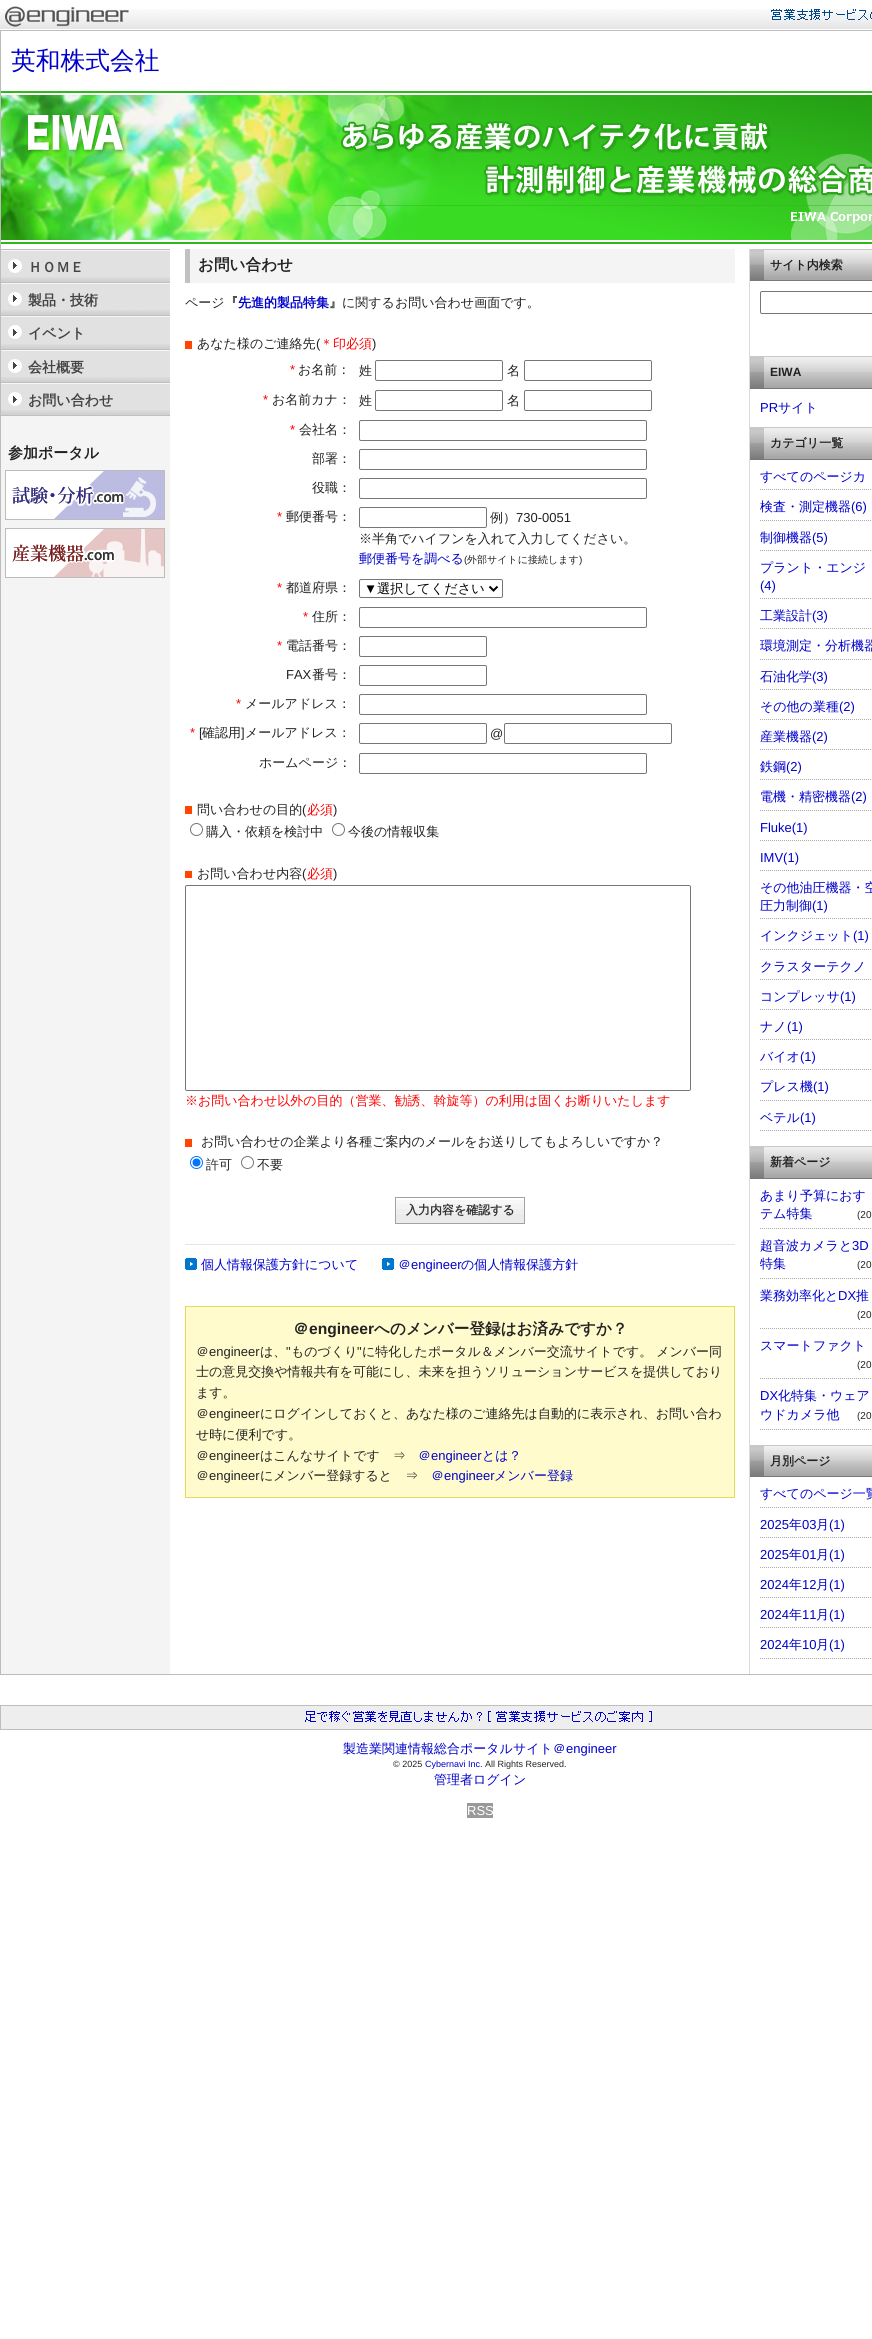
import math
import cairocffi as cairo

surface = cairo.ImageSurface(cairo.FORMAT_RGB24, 872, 2339)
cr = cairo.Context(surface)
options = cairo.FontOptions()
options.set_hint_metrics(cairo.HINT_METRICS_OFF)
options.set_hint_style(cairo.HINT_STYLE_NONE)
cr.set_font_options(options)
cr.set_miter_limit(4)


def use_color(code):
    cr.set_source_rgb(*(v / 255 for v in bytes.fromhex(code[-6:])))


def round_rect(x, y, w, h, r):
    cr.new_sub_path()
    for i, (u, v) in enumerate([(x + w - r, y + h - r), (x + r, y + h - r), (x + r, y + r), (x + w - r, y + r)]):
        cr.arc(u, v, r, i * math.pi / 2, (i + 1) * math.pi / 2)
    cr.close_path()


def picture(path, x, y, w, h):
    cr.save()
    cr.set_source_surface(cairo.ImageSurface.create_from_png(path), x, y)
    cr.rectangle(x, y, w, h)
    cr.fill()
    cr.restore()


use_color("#ffffff")
cr.paint()
picture("img1.png", 0, 9, 872, 22)
picture("img2.png", 5, 6, 124, 21)
picture("img3.png", 771, 9, 101, 11)
use_color("#bcbcbc")
cr.rectangle(0, 1674, 872, 1)
cr.fill()
cr.rectangle(0, 31, 1, 1644)
cr.fill()
cr.select_font_face("WenQuanYi Zen Hei Medium")
cr.set_font_size(24.75)
use_color("#0000cc")
cr.move_to(11, 69)
cr.show_text("英和株式会社")
picture("img4.png", 1, 91, 871, 153)
picture("img5.png", 1, 249, 749, 1425)
use_color("#e1e1e1")
cr.rectangle(1, 251, 169, 159)
cr.fill()
use_color("#bfbfbf")
cr.rectangle(1, 249, 169, 1)
cr.fill()
picture("img6.png", 1, 277, 169, 6)
use_color("#ffffff")
cr.arc(15, 266, 7, 0, 2 * math.pi)
cr.fill()
picture("img7.png", 13, 262, 4, 7)
cr.select_font_face("WenQuanYi Zen Hei", cairo.FONT_SLANT_NORMAL, cairo.FONT_WEIGHT_BOLD)
cr.set_font_size(14)
use_color("#444444")
cr.move_to(28, 272)
cr.show_text("ＨＯＭＥ")
picture("img6.png", 1, 310, 169, 6)
use_color("#f6f6f6")
cr.rectangle(1, 283, 169, 1)
cr.fill()
use_color("#ffffff")
cr.arc(15, 299, 7, 0, 2 * math.pi)
cr.fill()
picture("img7.png", 13, 295, 4, 7)
use_color("#444444")
cr.move_to(28, 305)
cr.show_text("製品・技術")
picture("img6.png", 1, 344, 169, 6)
use_color("#f6f6f6")
cr.rectangle(1, 316, 169, 1)
cr.fill()
use_color("#ffffff")
cr.arc(15, 332, 7, 0, 2 * math.pi)
cr.fill()
picture("img7.png", 13, 329, 4, 7)
use_color("#444444")
cr.move_to(28, 338)
cr.show_text("イベント")
picture("img6.png", 1, 377, 169, 6)
use_color("#f6f6f6")
cr.rectangle(1, 350, 169, 1)
cr.fill()
use_color("#ffffff")
cr.arc(15, 366, 7, 0, 2 * math.pi)
cr.fill()
picture("img7.png", 13, 362, 4, 7)
use_color("#444444")
cr.move_to(28, 372)
cr.show_text("会社概要")
picture("img6.png", 1, 410, 169, 6)
use_color("#f6f6f6")
cr.rectangle(1, 383, 169, 1)
cr.fill()
use_color("#ffffff")
cr.arc(15, 399, 7, 0, 2 * math.pi)
cr.fill()
picture("img7.png", 13, 396, 4, 7)
use_color("#444444")
cr.move_to(28, 405)
cr.show_text("お問い合わせ")
cr.set_font_size(15)
use_color("#222222")
cr.move_to(8, 458)
cr.show_text("参加ポータル")
picture("img8.png", 5, 470, 160, 50)
picture("img9.png", 5, 528, 160, 50)
use_color("#f4f4f4")
cr.rectangle(190, 249, 545, 34)
cr.fill()
use_color("#c1c1c1")
cr.rectangle(185, 249, 5, 34)
cr.fill()
cr.set_font_size(15.6)
use_color("#222222")
cr.move_to(198, 270)
cr.show_text("お問い合わせ")
cr.select_font_face("WenQuanYi Zen Hei Medium")
cr.set_font_size(13)
cr.move_to(185, 307)
cr.show_text("ページ")
cr.select_font_face("WenQuanYi Zen Hei", cairo.FONT_SLANT_NORMAL, cairo.FONT_WEIGHT_BOLD)
cr.move_to(225, 307)
cr.show_text("『")
use_color("#0000cc")
cr.move_to(238, 307)
cr.show_text("先進的製品特集")
use_color("#222222")
cr.move_to(329, 307)
cr.show_text("』")
cr.select_font_face("WenQuanYi Zen Hei Medium")
cr.move_to(342, 307)
cr.show_text("に関するお問い合わせ画面です。")
use_color("#ff4500")
cr.rectangle(185, 341, 7, 8)
cr.fill()
use_color("#222222")
cr.move_to(197, 348)
cr.show_text("あなた様のご連絡先")
cr.select_font_face("Liberation Sans")
cr.move_to(316, 348)
cr.show_text("(")
cr.select_font_face("WenQuanYi Zen Hei Medium")
use_color("#ff0000")
cr.move_to(320, 348)
cr.show_text("＊印必須")
cr.select_font_face("Liberation Sans")
use_color("#222222")
cr.move_to(372, 348)
cr.show_text(")")
use_color("#ff0000")
cr.move_to(290, 374)
cr.show_text("*")
cr.select_font_face("WenQuanYi Zen Hei Medium")
use_color("#222222")
cr.move_to(298, 374)
cr.show_text("お名前：")
cr.move_to(359, 375)
cr.show_text("姓")
round_rect(375.5, 360.5, 127, 20, 1.5)
use_color("#767676")
cr.set_line_width(1)
cr.stroke()
use_color("#222222")
cr.move_to(507, 375)
cr.show_text("名")
round_rect(524.5, 360.5, 127, 20, 1.5)
use_color("#767676")
cr.stroke()
cr.select_font_face("Liberation Sans")
use_color("#ff0000")
cr.move_to(263, 404)
cr.show_text("*")
cr.select_font_face("WenQuanYi Zen Hei Medium")
use_color("#222222")
cr.move_to(272, 404)
cr.show_text("お名前カナ：")
cr.move_to(359, 405)
cr.show_text("姓")
round_rect(375.5, 390.5, 127, 20, 1.5)
use_color("#767676")
cr.stroke()
use_color("#222222")
cr.move_to(507, 405)
cr.show_text("名")
round_rect(524.5, 390.5, 127, 20, 1.5)
use_color("#767676")
cr.stroke()
cr.select_font_face("Liberation Sans")
use_color("#ff0000")
cr.move_to(290, 434)
cr.show_text("*")
cr.select_font_face("WenQuanYi Zen Hei Medium")
use_color("#222222")
cr.move_to(299, 434)
cr.show_text("会社名：")
round_rect(359.5, 420.5, 287, 20, 1.5)
use_color("#767676")
cr.stroke()
use_color("#222222")
cr.move_to(312, 463)
cr.show_text("部署：")
round_rect(359.5, 449.5, 287, 20, 1.5)
use_color("#767676")
cr.stroke()
use_color("#222222")
cr.move_to(312, 492)
cr.show_text("役職：")
round_rect(359.5, 478.5, 287, 20, 1.5)
use_color("#767676")
cr.stroke()
cr.select_font_face("Liberation Sans")
use_color("#ff0000")
cr.move_to(277, 521)
cr.show_text("*")
cr.select_font_face("WenQuanYi Zen Hei Medium")
use_color("#222222")
cr.move_to(286, 521)
cr.show_text("郵便番号：")
round_rect(359.5, 507.5, 127, 20, 1.5)
use_color("#767676")
cr.stroke()
use_color("#222222")
cr.move_to(490, 522)
cr.show_text("例）")
cr.select_font_face("Liberation Sans")
cr.move_to(516, 522)
cr.show_text("730-0051")
cr.select_font_face("WenQuanYi Zen Hei Medium")
cr.move_to(359, 543)
cr.show_text("※半角でハイフンを入れて入力してください。")
use_color("#0000cc")
cr.move_to(359, 563)
cr.show_text("郵便番号を調べる")
cr.select_font_face("Liberation Sans")
cr.set_font_size(10)
use_color("#222222")
cr.move_to(464, 563)
cr.show_text("(")
cr.select_font_face("WenQuanYi Zen Hei Medium")
cr.move_to(467, 563)
cr.show_text("外部サイトに接続します")
cr.select_font_face("Liberation Sans")
cr.move_to(579, 563)
cr.show_text(")")
cr.set_font_size(13)
use_color("#ff0000")
cr.move_to(277, 592)
cr.show_text("*")
cr.select_font_face("WenQuanYi Zen Hei Medium")
use_color("#222222")
cr.move_to(286, 592)
cr.show_text("都道府県：")
round_rect(359.5, 579.5, 143, 18, 1.5)
use_color("#767676")
cr.stroke()
cr.new_path()
cr.move_to(489.5, 586.5)
cr.line_to(493.5, 590.5)
cr.line_to(497.5, 586.5)
use_color("#000000")
cr.set_line_width(2)
cr.stroke()
cr.select_font_face("Liberation Sans")
cr.set_font_size(13.25)
cr.move_to(364, 593)
cr.show_text("▼")
cr.select_font_face("WenQuanYi Zen Hei Medium")
cr.move_to(377, 593)
cr.show_text("選択してください")
cr.select_font_face("Liberation Sans")
cr.set_font_size(13)
use_color("#ff0000")
cr.move_to(303, 621)
cr.show_text("*")
cr.select_font_face("WenQuanYi Zen Hei Medium")
use_color("#222222")
cr.move_to(312, 621)
cr.show_text("住所：")
round_rect(359.5, 607.5, 287, 20, 1.5)
use_color("#767676")
cr.set_line_width(1)
cr.stroke()
cr.select_font_face("Liberation Sans")
use_color("#ff0000")
cr.move_to(277, 650)
cr.show_text("*")
cr.select_font_face("WenQuanYi Zen Hei Medium")
use_color("#222222")
cr.move_to(286, 650)
cr.show_text("電話番号：")
round_rect(359.5, 636.5, 127, 20, 1.5)
use_color("#767676")
cr.stroke()
cr.select_font_face("Liberation Sans")
use_color("#222222")
cr.move_to(286, 679)
cr.show_text("FAX")
cr.select_font_face("WenQuanYi Zen Hei Medium")
cr.move_to(312, 679)
cr.show_text("番号：")
round_rect(359.5, 665.5, 127, 20, 1.5)
use_color("#767676")
cr.stroke()
cr.select_font_face("Liberation Sans")
use_color("#ff0000")
cr.move_to(236, 708)
cr.show_text("*")
cr.select_font_face("WenQuanYi Zen Hei Medium")
use_color("#222222")
cr.move_to(245, 708)
cr.show_text("メールアドレス：")
round_rect(359.5, 694.5, 287, 20, 1.5)
use_color("#767676")
cr.stroke()
cr.select_font_face("Liberation Sans")
use_color("#222222")
cr.move_to(199, 737)
cr.show_text("[")
cr.select_font_face("WenQuanYi Zen Hei Medium")
cr.move_to(202, 737)
cr.show_text("確認用 メールアドレス：")
cr.select_font_face("Liberation Sans")
use_color("#ff0000")
cr.move_to(190, 737)
cr.show_text("*")
use_color("#222222")
cr.move_to(241, 737)
cr.show_text("]")
round_rect(359.5, 723.5, 127, 20, 1.5)
use_color("#767676")
cr.stroke()
use_color("#222222")
cr.move_to(490, 738)
cr.show_text("@")
round_rect(504.5, 723.5, 167, 20, 1.5)
use_color("#767676")
cr.stroke()
cr.select_font_face("WenQuanYi Zen Hei Medium")
use_color("#222222")
cr.move_to(259, 767)
cr.show_text("ホームページ：")
round_rect(359.5, 753.5, 287, 20, 1.5)
use_color("#767676")
cr.stroke()
use_color("#ff4500")
cr.rectangle(185, 806, 7, 8)
cr.fill()
use_color("#222222")
cr.move_to(197, 814)
cr.show_text("問い合わせの目的")
cr.select_font_face("Liberation Sans")
cr.move_to(302, 814)
cr.show_text("(")
cr.select_font_face("WenQuanYi Zen Hei Medium")
use_color("#ff0000")
cr.move_to(307, 814)
cr.show_text("必須")
cr.select_font_face("Liberation Sans")
use_color("#222222")
cr.move_to(333, 814)
cr.show_text(")")
cr.new_path()
cr.arc(196.5, 829.5, 6, 0, 2 * math.pi)
use_color("#767676")
cr.stroke()
cr.select_font_face("WenQuanYi Zen Hei Medium")
use_color("#222222")
cr.move_to(206, 836)
cr.show_text("購入・依頼を検討中")
cr.new_path()
cr.arc(338.5, 829.5, 6, 0, 2 * math.pi)
use_color("#767676")
cr.stroke()
use_color("#222222")
cr.move_to(348, 836)
cr.show_text("今後の情報収集")
use_color("#ff4500")
cr.rectangle(185, 871, 7, 7)
cr.fill()
use_color("#222222")
cr.move_to(197, 878)
cr.show_text("お問い合わせ内容")
cr.select_font_face("Liberation Sans")
cr.move_to(302, 878)
cr.show_text("(")
cr.select_font_face("WenQuanYi Zen Hei Medium")
use_color("#ff0000")
cr.move_to(307, 878)
cr.show_text("必須")
cr.select_font_face("Liberation Sans")
use_color("#222222")
cr.move_to(333, 878)
cr.show_text(")")
round_rect(185.5, 885.5, 505, 205, 1.5)
use_color("#767676")
cr.stroke()
cr.select_font_face("WenQuanYi Zen Hei Medium")
use_color("#ff0000")
cr.move_to(185, 1105)
cr.show_text("※お問い合わせ以外の目的（営業、勧誘、斡旋等）の利用は固くお断りいたします")
use_color("#ff4500")
cr.rectangle(185, 1139, 7, 8)
cr.fill()
use_color("#222222")
cr.move_to(201, 1146)
cr.show_text("お問い合わせの企業より各種ご案内のメールをお送りしてもよろしいですか？")
cr.new_path()
cr.arc(196.5, 1162.5, 6, 0, 2 * math.pi)
use_color("#0075ff")
cr.stroke()
cr.arc(196.5, 1162.5, 4, 0, 2 * math.pi)
cr.fill()
use_color("#222222")
cr.move_to(206, 1169)
cr.show_text("許可")
cr.new_path()
cr.arc(247.5, 1162.5, 6, 0, 2 * math.pi)
use_color("#767676")
cr.stroke()
use_color("#222222")
cr.move_to(257, 1169)
cr.show_text("不要")
picture("img10.png", 396, 1200, 128, 23)
cr.rectangle(395.5, 1197.5, 129, 26)
use_color("#a2a2a2")
cr.stroke()
cr.select_font_face("WenQuanYi Zen Hei", cairo.FONT_SLANT_NORMAL, cairo.FONT_WEIGHT_BOLD)
cr.set_font_size(12)
use_color("#333333")
cr.move_to(406, 1214)
cr.show_text("入力内容を確認する")
use_color("#e5e5e5")
cr.rectangle(185, 1244, 550, 1)
cr.fill()
picture("img11.png", 185, 1258, 12, 12)
cr.select_font_face("WenQuanYi Zen Hei Medium")
cr.set_font_size(13)
use_color("#0000cc")
cr.move_to(201, 1269)
cr.show_text("個人情報保護方針について")
picture("img11.png", 382, 1258, 12, 12)
cr.move_to(398, 1269)
cr.show_text("＠")
cr.select_font_face("Liberation Sans")
cr.move_to(411, 1269)
cr.show_text("engineer")
cr.select_font_face("WenQuanYi Zen Hei Medium")
cr.move_to(461, 1269)
cr.show_text("の個人情報保護方針")
use_color("#fffbcc")
cr.rectangle(185.5, 1306.5, 549, 191)
cr.fill_preserve()
use_color("#e6db55")
cr.stroke()
cr.select_font_face("WenQuanYi Zen Hei", cairo.FONT_SLANT_NORMAL, cairo.FONT_WEIGHT_BOLD)
cr.set_font_size(15.6)
use_color("#222222")
cr.move_to(293, 1334)
cr.show_text("＠")
cr.select_font_face("Liberation Sans", cairo.FONT_SLANT_NORMAL, cairo.FONT_WEIGHT_BOLD)
cr.move_to(309, 1334)
cr.show_text("engineer")
cr.select_font_face("WenQuanYi Zen Hei", cairo.FONT_SLANT_NORMAL, cairo.FONT_WEIGHT_BOLD)
cr.move_to(374, 1334)
cr.show_text("へのメンバー登録はお済みですか？")
cr.select_font_face("WenQuanYi Zen Hei Medium")
cr.set_font_size(13)
cr.move_to(196, 1356)
cr.show_text("＠")
cr.select_font_face("Liberation Sans")
cr.move_to(209, 1356)
cr.show_text("engineer")
cr.select_font_face("WenQuanYi Zen Hei Medium")
cr.move_to(260, 1356)
cr.show_text("は、")
cr.select_font_face("Liberation Sans")
cr.move_to(286, 1356)
cr.show_text("\"")
cr.select_font_face("WenQuanYi Zen Hei Medium")
cr.move_to(291, 1356)
cr.show_text("ものづくり")
cr.select_font_face("Liberation Sans")
cr.move_to(357, 1356)
cr.show_text("\"")
cr.select_font_face("WenQuanYi Zen Hei Medium")
cr.move_to(362, 1356)
cr.show_text("に特化したポータル＆メンバー交流サイトです。 メンバー同")
cr.move_to(196, 1376)
cr.show_text("士の意見交換や情報共有を可能にし、未来を担うソリューションサービスを提供しており")
cr.move_to(196, 1397)
cr.show_text("ます。")
cr.move_to(196, 1418)
cr.show_text("＠")
cr.select_font_face("Liberation Sans")
cr.move_to(209, 1418)
cr.show_text("engineer")
cr.select_font_face("WenQuanYi Zen Hei Medium")
cr.move_to(260, 1418)
cr.show_text("にログインしておくと、あなた様のご連絡先は自動的に表示され、お問い合わ")
cr.move_to(196, 1439)
cr.show_text("せ時に便利です。")
cr.move_to(196, 1460)
cr.show_text("＠")
cr.select_font_face("Liberation Sans")
cr.move_to(209, 1460)
cr.show_text("engineer")
cr.select_font_face("WenQuanYi Zen Hei Medium")
cr.move_to(260, 1460)
cr.show_text("はこんなサイトです　⇒")
use_color("#0000cc")
cr.move_to(418, 1460)
cr.show_text("＠")
cr.select_font_face("Liberation Sans")
cr.move_to(431, 1460)
cr.show_text("engineer")
cr.select_font_face("WenQuanYi Zen Hei Medium")
cr.move_to(482, 1460)
cr.show_text("とは？")
use_color("#222222")
cr.move_to(196, 1480)
cr.show_text("＠")
cr.select_font_face("Liberation Sans")
cr.move_to(209, 1480)
cr.show_text("engineer")
cr.select_font_face("WenQuanYi Zen Hei Medium")
cr.move_to(260, 1480)
cr.show_text("にメンバー登録すると　⇒")
use_color("#0000cc")
cr.move_to(431, 1480)
cr.show_text("＠")
cr.select_font_face("Liberation Sans")
cr.move_to(444, 1480)
cr.show_text("engineer")
cr.select_font_face("WenQuanYi Zen Hei Medium")
cr.move_to(494, 1480)
cr.show_text("メンバー登録")
picture("img12.png", 750, 250, 122, 30)
use_color("#c8c8c8")
cr.rectangle(750, 249, 122, 1)
cr.fill()
use_color("#787878")
cr.rectangle(750, 280, 122, 1)
cr.fill()
cr.select_font_face("WenQuanYi Zen Hei", cairo.FONT_SLANT_NORMAL, cairo.FONT_WEIGHT_BOLD)
cr.set_font_size(12)
use_color("#222222")
cr.move_to(770, 269)
cr.show_text("サイト内検索")
round_rect(760.5, 291.5, 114, 22, 1.5)
use_color("#767676")
cr.stroke()
picture("img13.png", 750, 357, 122, 31)
use_color("#c8c8c8")
cr.rectangle(750, 356, 122, 1)
cr.fill()
use_color("#787878")
cr.rectangle(750, 388, 122, 1)
cr.fill()
cr.select_font_face("Liberation Sans", cairo.FONT_SLANT_NORMAL, cairo.FONT_WEIGHT_BOLD)
use_color("#222222")
cr.move_to(770, 376)
cr.show_text("EIWA")
cr.select_font_face("Liberation Sans")
cr.set_font_size(13)
use_color("#0000cc")
cr.move_to(760, 412)
cr.show_text("PR")
cr.select_font_face("WenQuanYi Zen Hei Medium")
cr.move_to(778, 412)
cr.show_text("サイト")
picture("img13.png", 750, 428, 122, 31)
use_color("#c8c8c8")
cr.rectangle(750, 427, 122, 1)
cr.fill()
use_color("#787878")
cr.rectangle(750, 459, 122, 1)
cr.fill()
cr.select_font_face("WenQuanYi Zen Hei", cairo.FONT_SLANT_NORMAL, cairo.FONT_WEIGHT_BOLD)
cr.set_font_size(12)
use_color("#222222")
cr.move_to(770, 447)
cr.show_text("カテゴリ一覧")
cr.new_path()
cr.move_to(760, 489.5)
cr.line_to(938, 489.5)
use_color("#aaaaaa")
cr.set_dash([1, 1])
cr.stroke()
cr.select_font_face("WenQuanYi Zen Hei Medium")
cr.set_font_size(13)
use_color("#0000cc")
cr.move_to(760, 481)
cr.show_text("すべてのページカ")
cr.new_path()
cr.move_to(760, 520.5)
cr.line_to(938, 520.5)
use_color("#aaaaaa")
cr.stroke()
use_color("#0000cc")
cr.move_to(760, 511)
cr.show_text("検査・測定機器")
cr.select_font_face("Liberation Sans")
cr.move_to(851, 511)
cr.show_text("(6)")
cr.new_path()
cr.move_to(760, 550.5)
cr.line_to(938, 550.5)
use_color("#aaaaaa")
cr.stroke()
cr.select_font_face("WenQuanYi Zen Hei Medium")
use_color("#0000cc")
cr.move_to(760, 542)
cr.show_text("制御機器")
cr.select_font_face("Liberation Sans")
cr.move_to(812, 542)
cr.show_text("(5)")
cr.new_path()
cr.move_to(760, 598.5)
cr.line_to(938, 598.5)
use_color("#aaaaaa")
cr.stroke()
cr.select_font_face("WenQuanYi Zen Hei Medium")
use_color("#0000cc")
cr.move_to(760, 572)
cr.show_text("プラント・エンジ")
cr.select_font_face("Liberation Sans")
cr.move_to(760, 590)
cr.show_text("(4)")
cr.new_path()
cr.move_to(760, 628.5)
cr.line_to(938, 628.5)
use_color("#aaaaaa")
cr.stroke()
cr.select_font_face("WenQuanYi Zen Hei Medium")
use_color("#0000cc")
cr.move_to(760, 620)
cr.show_text("工業設計")
cr.select_font_face("Liberation Sans")
cr.move_to(812, 620)
cr.show_text("(3)")
cr.new_path()
cr.move_to(760, 659.5)
cr.line_to(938, 659.5)
use_color("#aaaaaa")
cr.stroke()
cr.select_font_face("WenQuanYi Zen Hei Medium")
use_color("#0000cc")
cr.move_to(760, 650)
cr.show_text("環境測定・分析機器")
cr.new_path()
cr.move_to(760, 689.5)
cr.line_to(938, 689.5)
use_color("#aaaaaa")
cr.stroke()
use_color("#0000cc")
cr.move_to(760, 681)
cr.show_text("石油化学")
cr.select_font_face("Liberation Sans")
cr.move_to(812, 681)
cr.show_text("(3)")
cr.new_path()
cr.move_to(760, 719.5)
cr.line_to(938, 719.5)
use_color("#aaaaaa")
cr.stroke()
cr.select_font_face("WenQuanYi Zen Hei Medium")
use_color("#0000cc")
cr.move_to(760, 711)
cr.show_text("その他の業種")
cr.select_font_face("Liberation Sans")
cr.move_to(839, 711)
cr.show_text("(2)")
cr.new_path()
cr.move_to(760, 749.5)
cr.line_to(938, 749.5)
use_color("#aaaaaa")
cr.stroke()
cr.select_font_face("WenQuanYi Zen Hei Medium")
use_color("#0000cc")
cr.move_to(760, 741)
cr.show_text("産業機器")
cr.select_font_face("Liberation Sans")
cr.move_to(812, 741)
cr.show_text("(2)")
cr.new_path()
cr.move_to(760, 779.5)
cr.line_to(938, 779.5)
use_color("#aaaaaa")
cr.stroke()
cr.select_font_face("WenQuanYi Zen Hei Medium")
use_color("#0000cc")
cr.move_to(760, 771)
cr.show_text("鉄鋼")
cr.select_font_face("Liberation Sans")
cr.move_to(786, 771)
cr.show_text("(2)")
cr.new_path()
cr.move_to(760, 810.5)
cr.line_to(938, 810.5)
use_color("#aaaaaa")
cr.stroke()
cr.select_font_face("WenQuanYi Zen Hei Medium")
use_color("#0000cc")
cr.move_to(760, 801)
cr.show_text("電機・精密機器")
cr.select_font_face("Liberation Sans")
cr.move_to(851, 801)
cr.show_text("(2)")
cr.new_path()
cr.move_to(760, 840.5)
cr.line_to(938, 840.5)
use_color("#aaaaaa")
cr.stroke()
use_color("#0000cc")
cr.move_to(760, 832)
cr.show_text("Fluke(1)")
cr.new_path()
cr.move_to(760, 870.5)
cr.line_to(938, 870.5)
use_color("#aaaaaa")
cr.stroke()
use_color("#0000cc")
cr.move_to(760, 862)
cr.show_text("IMV(1)")
cr.new_path()
cr.move_to(760, 918.5)
cr.line_to(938, 918.5)
use_color("#aaaaaa")
cr.stroke()
cr.select_font_face("WenQuanYi Zen Hei Medium")
use_color("#0000cc")
cr.move_to(760, 892)
cr.show_text("その他油圧機器・空")
cr.move_to(760, 910)
cr.show_text("圧力制御")
cr.select_font_face("Liberation Sans")
cr.move_to(812, 910)
cr.show_text("(1)")
cr.new_path()
cr.move_to(760, 949.5)
cr.line_to(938, 949.5)
use_color("#aaaaaa")
cr.stroke()
cr.select_font_face("WenQuanYi Zen Hei Medium")
use_color("#0000cc")
cr.move_to(760, 940)
cr.show_text("インクジェット")
cr.select_font_face("Liberation Sans")
cr.move_to(853, 940)
cr.show_text("(1)")
cr.new_path()
cr.move_to(760, 979.5)
cr.line_to(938, 979.5)
use_color("#aaaaaa")
cr.stroke()
cr.select_font_face("WenQuanYi Zen Hei Medium")
use_color("#0000cc")
cr.move_to(760, 971)
cr.show_text("クラスターテクノ")
cr.new_path()
cr.move_to(760, 1009.5)
cr.line_to(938, 1009.5)
use_color("#aaaaaa")
cr.stroke()
use_color("#0000cc")
cr.move_to(760, 1001)
cr.show_text("コンプレッサ")
cr.select_font_face("Liberation Sans")
cr.move_to(840, 1001)
cr.show_text("(1)")
cr.new_path()
cr.move_to(760, 1039.5)
cr.line_to(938, 1039.5)
use_color("#aaaaaa")
cr.stroke()
cr.select_font_face("WenQuanYi Zen Hei Medium")
use_color("#0000cc")
cr.move_to(760, 1031)
cr.show_text("ナノ")
cr.select_font_face("Liberation Sans")
cr.move_to(787, 1031)
cr.show_text("(1)")
cr.new_path()
cr.move_to(760, 1069.5)
cr.line_to(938, 1069.5)
use_color("#aaaaaa")
cr.stroke()
cr.select_font_face("WenQuanYi Zen Hei Medium")
use_color("#0000cc")
cr.move_to(760, 1061)
cr.show_text("バイオ")
cr.select_font_face("Liberation Sans")
cr.move_to(800, 1061)
cr.show_text("(1)")
cr.new_path()
cr.move_to(760, 1100.5)
cr.line_to(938, 1100.5)
use_color("#aaaaaa")
cr.stroke()
cr.select_font_face("WenQuanYi Zen Hei Medium")
use_color("#0000cc")
cr.move_to(760, 1091)
cr.show_text("プレス機")
cr.select_font_face("Liberation Sans")
cr.move_to(813, 1091)
cr.show_text("(1)")
cr.new_path()
cr.move_to(760, 1130.5)
cr.line_to(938, 1130.5)
use_color("#aaaaaa")
cr.stroke()
cr.select_font_face("WenQuanYi Zen Hei Medium")
use_color("#0000cc")
cr.move_to(760, 1122)
cr.show_text("ベテル")
cr.select_font_face("Liberation Sans")
cr.move_to(800, 1122)
cr.show_text("(1)")
picture("img13.png", 750, 1147, 122, 31)
use_color("#c8c8c8")
cr.rectangle(750, 1146, 122, 1)
cr.fill()
use_color("#787878")
cr.rectangle(750, 1178, 122, 1)
cr.fill()
cr.select_font_face("WenQuanYi Zen Hei", cairo.FONT_SLANT_NORMAL, cairo.FONT_WEIGHT_BOLD)
cr.set_font_size(12)
use_color("#222222")
cr.move_to(770, 1166)
cr.show_text("新着ページ")
cr.new_path()
cr.move_to(760, 1228.5)
cr.line_to(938, 1228.5)
use_color("#aaaaaa")
cr.stroke()
cr.select_font_face("WenQuanYi Zen Hei Medium")
cr.set_font_size(13)
use_color("#0000cc")
cr.move_to(760, 1200)
cr.show_text("あまり予算におす")
cr.move_to(760, 1218)
cr.show_text("テム特集")
cr.select_font_face("Liberation Sans")
cr.set_font_size(10)
use_color("#222222")
cr.move_to(857, 1218)
cr.show_text("(20")
cr.new_path()
cr.move_to(760, 1278.5)
cr.line_to(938, 1278.5)
use_color("#aaaaaa")
cr.stroke()
cr.select_font_face("WenQuanYi Zen Hei Medium")
cr.set_font_size(13)
use_color("#0000cc")
cr.move_to(760, 1250)
cr.show_text("超音波カメラと")
cr.select_font_face("Liberation Sans")
cr.move_to(852, 1250)
cr.show_text("3D")
cr.select_font_face("WenQuanYi Zen Hei Medium")
cr.move_to(760, 1268)
cr.show_text("特集")
cr.select_font_face("Liberation Sans")
cr.set_font_size(10)
use_color("#222222")
cr.move_to(857, 1268)
cr.show_text("(20")
cr.new_path()
cr.move_to(760, 1328.5)
cr.line_to(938, 1328.5)
use_color("#aaaaaa")
cr.stroke()
cr.select_font_face("WenQuanYi Zen Hei Medium")
cr.set_font_size(13)
use_color("#0000cc")
cr.move_to(760, 1300)
cr.show_text("業務効率化と")
cr.select_font_face("Liberation Sans")
cr.move_to(838, 1300)
cr.show_text("DX")
cr.select_font_face("WenQuanYi Zen Hei Medium")
cr.move_to(856, 1300)
cr.show_text("推")
cr.select_font_face("Liberation Sans")
cr.set_font_size(10)
use_color("#222222")
cr.move_to(857, 1318)
cr.show_text("(20")
cr.new_path()
cr.move_to(760, 1378.5)
cr.line_to(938, 1378.5)
use_color("#aaaaaa")
cr.stroke()
cr.select_font_face("WenQuanYi Zen Hei Medium")
cr.set_font_size(13)
use_color("#0000cc")
cr.move_to(760, 1350)
cr.show_text("スマートファクト")
cr.select_font_face("Liberation Sans")
cr.set_font_size(10)
use_color("#222222")
cr.move_to(857, 1368)
cr.show_text("(20")
cr.new_path()
cr.move_to(760, 1429.5)
cr.line_to(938, 1429.5)
use_color("#aaaaaa")
cr.stroke()
cr.set_font_size(13)
use_color("#0000cc")
cr.move_to(760, 1400)
cr.show_text("DX")
cr.select_font_face("WenQuanYi Zen Hei Medium")
cr.move_to(778, 1400)
cr.show_text("化特集・ウェア")
cr.move_to(760, 1419)
cr.show_text("ウドカメラ他")
cr.select_font_face("Liberation Sans")
cr.set_font_size(10)
use_color("#222222")
cr.move_to(857, 1419)
cr.show_text("(20")
picture("img12.png", 750, 1446, 122, 30)
use_color("#c8c8c8")
cr.rectangle(750, 1445, 122, 1)
cr.fill()
use_color("#787878")
cr.rectangle(750, 1476, 122, 1)
cr.fill()
cr.select_font_face("WenQuanYi Zen Hei", cairo.FONT_SLANT_NORMAL, cairo.FONT_WEIGHT_BOLD)
cr.set_font_size(12)
use_color("#222222")
cr.move_to(770, 1465)
cr.show_text("月別ページ")
cr.new_path()
cr.move_to(760, 1507.5)
cr.line_to(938, 1507.5)
use_color("#aaaaaa")
cr.stroke()
cr.select_font_face("WenQuanYi Zen Hei Medium")
cr.set_font_size(13)
use_color("#0000cc")
cr.move_to(760, 1498)
cr.show_text("すべてのページ一覧")
cr.new_path()
cr.move_to(760, 1537.5)
cr.line_to(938, 1537.5)
use_color("#aaaaaa")
cr.stroke()
cr.select_font_face("Liberation Sans")
use_color("#0000cc")
cr.move_to(760, 1529)
cr.show_text("2025")
cr.select_font_face("WenQuanYi Zen Hei Medium")
cr.move_to(789, 1529)
cr.show_text("年")
cr.select_font_face("Liberation Sans")
cr.move_to(802, 1529)
cr.show_text("03")
cr.select_font_face("WenQuanYi Zen Hei Medium")
cr.move_to(816, 1529)
cr.show_text("月")
cr.select_font_face("Liberation Sans")
cr.move_to(829, 1529)
cr.show_text("(1)")
cr.new_path()
cr.move_to(760, 1567.5)
cr.line_to(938, 1567.5)
use_color("#aaaaaa")
cr.stroke()
use_color("#0000cc")
cr.move_to(760, 1559)
cr.show_text("2025")
cr.select_font_face("WenQuanYi Zen Hei Medium")
cr.move_to(789, 1559)
cr.show_text("年")
cr.select_font_face("Liberation Sans")
cr.move_to(802, 1559)
cr.show_text("01")
cr.select_font_face("WenQuanYi Zen Hei Medium")
cr.move_to(816, 1559)
cr.show_text("月")
cr.select_font_face("Liberation Sans")
cr.move_to(829, 1559)
cr.show_text("(1)")
cr.new_path()
cr.move_to(760, 1597.5)
cr.line_to(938, 1597.5)
use_color("#aaaaaa")
cr.stroke()
use_color("#0000cc")
cr.move_to(760, 1589)
cr.show_text("2024")
cr.select_font_face("WenQuanYi Zen Hei Medium")
cr.move_to(789, 1589)
cr.show_text("年")
cr.select_font_face("Liberation Sans")
cr.move_to(802, 1589)
cr.show_text("12")
cr.select_font_face("WenQuanYi Zen Hei Medium")
cr.move_to(816, 1589)
cr.show_text("月")
cr.select_font_face("Liberation Sans")
cr.move_to(829, 1589)
cr.show_text("(1)")
cr.new_path()
cr.move_to(760, 1627.5)
cr.line_to(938, 1627.5)
use_color("#aaaaaa")
cr.stroke()
use_color("#0000cc")
cr.move_to(760, 1619)
cr.show_text("2024")
cr.select_font_face("WenQuanYi Zen Hei Medium")
cr.move_to(789, 1619)
cr.show_text("年")
cr.select_font_face("Liberation Sans")
cr.move_to(802, 1619)
cr.show_text("11")
cr.select_font_face("WenQuanYi Zen Hei Medium")
cr.move_to(816, 1619)
cr.show_text("月")
cr.select_font_face("Liberation Sans")
cr.move_to(829, 1619)
cr.show_text("(1)")
cr.new_path()
cr.move_to(760, 1658.5)
cr.line_to(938, 1658.5)
use_color("#aaaaaa")
cr.stroke()
use_color("#0000cc")
cr.move_to(760, 1649)
cr.show_text("2024")
cr.select_font_face("WenQuanYi Zen Hei Medium")
cr.move_to(789, 1649)
cr.show_text("年")
cr.select_font_face("Liberation Sans")
cr.move_to(802, 1649)
cr.show_text("10")
cr.select_font_face("WenQuanYi Zen Hei Medium")
cr.move_to(816, 1649)
cr.show_text("月")
cr.select_font_face("Liberation Sans")
cr.move_to(829, 1649)
cr.show_text("(1)")
picture("img14.png", 0, 1705, 872, 25)
cr.select_font_face("WenQuanYi Zen Hei Medium")
cr.move_to(343, 1753)
cr.show_text("製造業関連情報総合ポータルサイト＠")
cr.select_font_face("Liberation Sans")
cr.move_to(566, 1753)
cr.show_text("engineer")
cr.set_font_size(9)
use_color("#222222")
cr.move_to(393, 1767)
cr.show_text("© 2025")
use_color("#0000cc")
cr.move_to(425, 1767)
cr.show_text("Cybernavi Inc.")
use_color("#222222")
cr.move_to(485, 1767)
cr.show_text("All Rights Reserved.")
cr.select_font_face("WenQuanYi Zen Hei Medium")
cr.set_font_size(13)
use_color("#0000cc")
cr.move_to(434, 1784)
cr.show_text("管理者ログイン")
use_color("#999999")
cr.rectangle(467, 1803, 26, 15)
cr.fill()
cr.select_font_face("Liberation Sans")
use_color("#ffffff")
cr.move_to(467, 1815)
cr.show_text("RSS")
surface.write_to_png("result.png")
